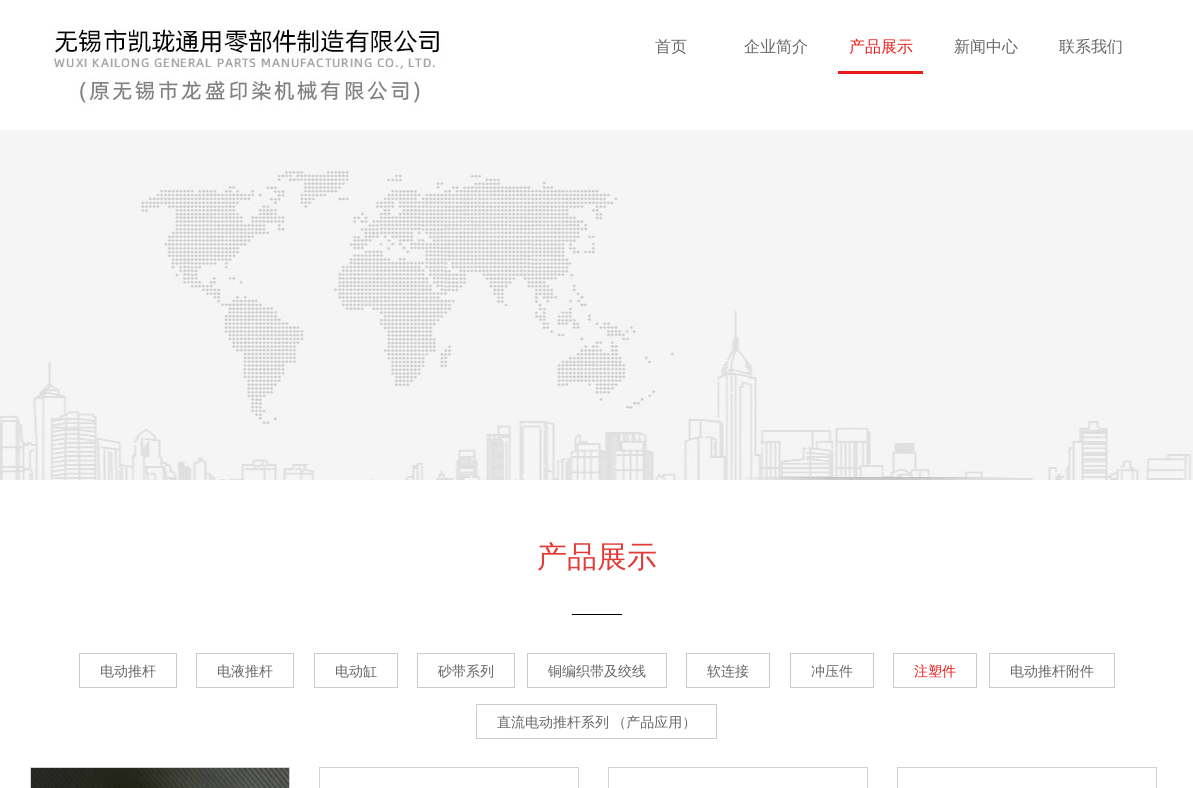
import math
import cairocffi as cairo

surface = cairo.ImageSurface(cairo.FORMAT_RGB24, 1193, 788)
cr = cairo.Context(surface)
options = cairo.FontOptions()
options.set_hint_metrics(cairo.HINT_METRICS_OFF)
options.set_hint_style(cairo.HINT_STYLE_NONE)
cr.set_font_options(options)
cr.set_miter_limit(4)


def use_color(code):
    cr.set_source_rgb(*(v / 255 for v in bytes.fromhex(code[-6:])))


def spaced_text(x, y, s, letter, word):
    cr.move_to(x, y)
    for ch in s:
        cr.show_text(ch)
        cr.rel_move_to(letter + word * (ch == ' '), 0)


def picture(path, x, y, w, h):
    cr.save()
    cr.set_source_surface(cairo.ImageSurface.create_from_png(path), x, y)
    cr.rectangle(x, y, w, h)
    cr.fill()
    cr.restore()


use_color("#ffffff")
cr.paint()
picture("img1.png", 50, 28, 392, 80)
cr.select_font_face("WenQuanYi Zen Hei Medium")
cr.set_font_size(16)
use_color("#666666")
cr.move_to(655, 52)
cr.show_text("首页")
cr.move_to(744, 52)
cr.show_text("企业简介")
use_color("#e91b1b")
cr.move_to(849, 52)
cr.show_text("产品展示")
use_color("#666666")
cr.move_to(954, 52)
cr.show_text("新闻中心")
cr.move_to(1059, 52)
cr.show_text("联系我们")
use_color("#e91b1b")
cr.rectangle(838, 71, 85, 3)
cr.fill()
picture("img2.png", 0, 130, 1193, 350)
cr.set_font_size(30)
use_color("#e13c37")
cr.move_to(537, 567)
cr.show_text("产品展示")
use_color("#000000")
cr.rectangle(572, 614, 50, 1)
cr.fill()
cr.rectangle(79.5, 653.5, 97, 34)
use_color("#cccccc")
cr.set_line_width(1)
cr.stroke()
cr.set_font_size(14)
use_color("#666666")
cr.move_to(100, 676)
cr.show_text("电动推杆")
cr.rectangle(196.5, 653.5, 97, 34)
use_color("#cccccc")
cr.stroke()
use_color("#666666")
cr.move_to(217, 676)
cr.show_text("电液推杆")
cr.rectangle(314.5, 653.5, 83, 34)
use_color("#cccccc")
cr.stroke()
use_color("#666666")
cr.move_to(335, 676)
cr.show_text("电动缸")
cr.rectangle(417.5, 653.5, 97, 34)
use_color("#cccccc")
cr.stroke()
use_color("#666666")
cr.move_to(438, 676)
cr.show_text("砂带系列")
cr.rectangle(527.5, 653.5, 139, 34)
use_color("#cccccc")
cr.stroke()
use_color("#666666")
cr.move_to(548, 676)
cr.show_text("铜编织带及绞线")
cr.rectangle(686.5, 653.5, 83, 34)
use_color("#cccccc")
cr.stroke()
use_color("#666666")
cr.move_to(707, 676)
cr.show_text("软连接")
cr.rectangle(790.5, 653.5, 83, 34)
use_color("#cccccc")
cr.stroke()
use_color("#666666")
cr.move_to(811, 676)
cr.show_text("冲压件")
cr.rectangle(893.5, 653.5, 83, 34)
use_color("#cccccc")
cr.stroke()
use_color("#e91b1b")
cr.move_to(914, 676)
cr.show_text("注塑件")
cr.rectangle(989.5, 653.5, 125, 34)
use_color("#cccccc")
cr.stroke()
use_color("#666666")
cr.move_to(1010, 676)
cr.show_text("电动推杆附件")
cr.rectangle(476.5, 704.5, 240, 34)
use_color("#cccccc")
cr.stroke()
use_color("#666666")
spaced_text(497, 727, "直流电动推杆系列 （产品应用）", 0, -1)
cr.rectangle(30.5, 767.5, 259, 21)
use_color("#d2d2d2")
cr.stroke()
picture("img3.png", 31, 768, 258, 20)
cr.rectangle(319.5, 767.5, 259, 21)
cr.stroke()
cr.rectangle(608.5, 767.5, 259, 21)
cr.stroke()
cr.rectangle(897.5, 767.5, 259, 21)
cr.stroke()
surface.write_to_png("result.png")
